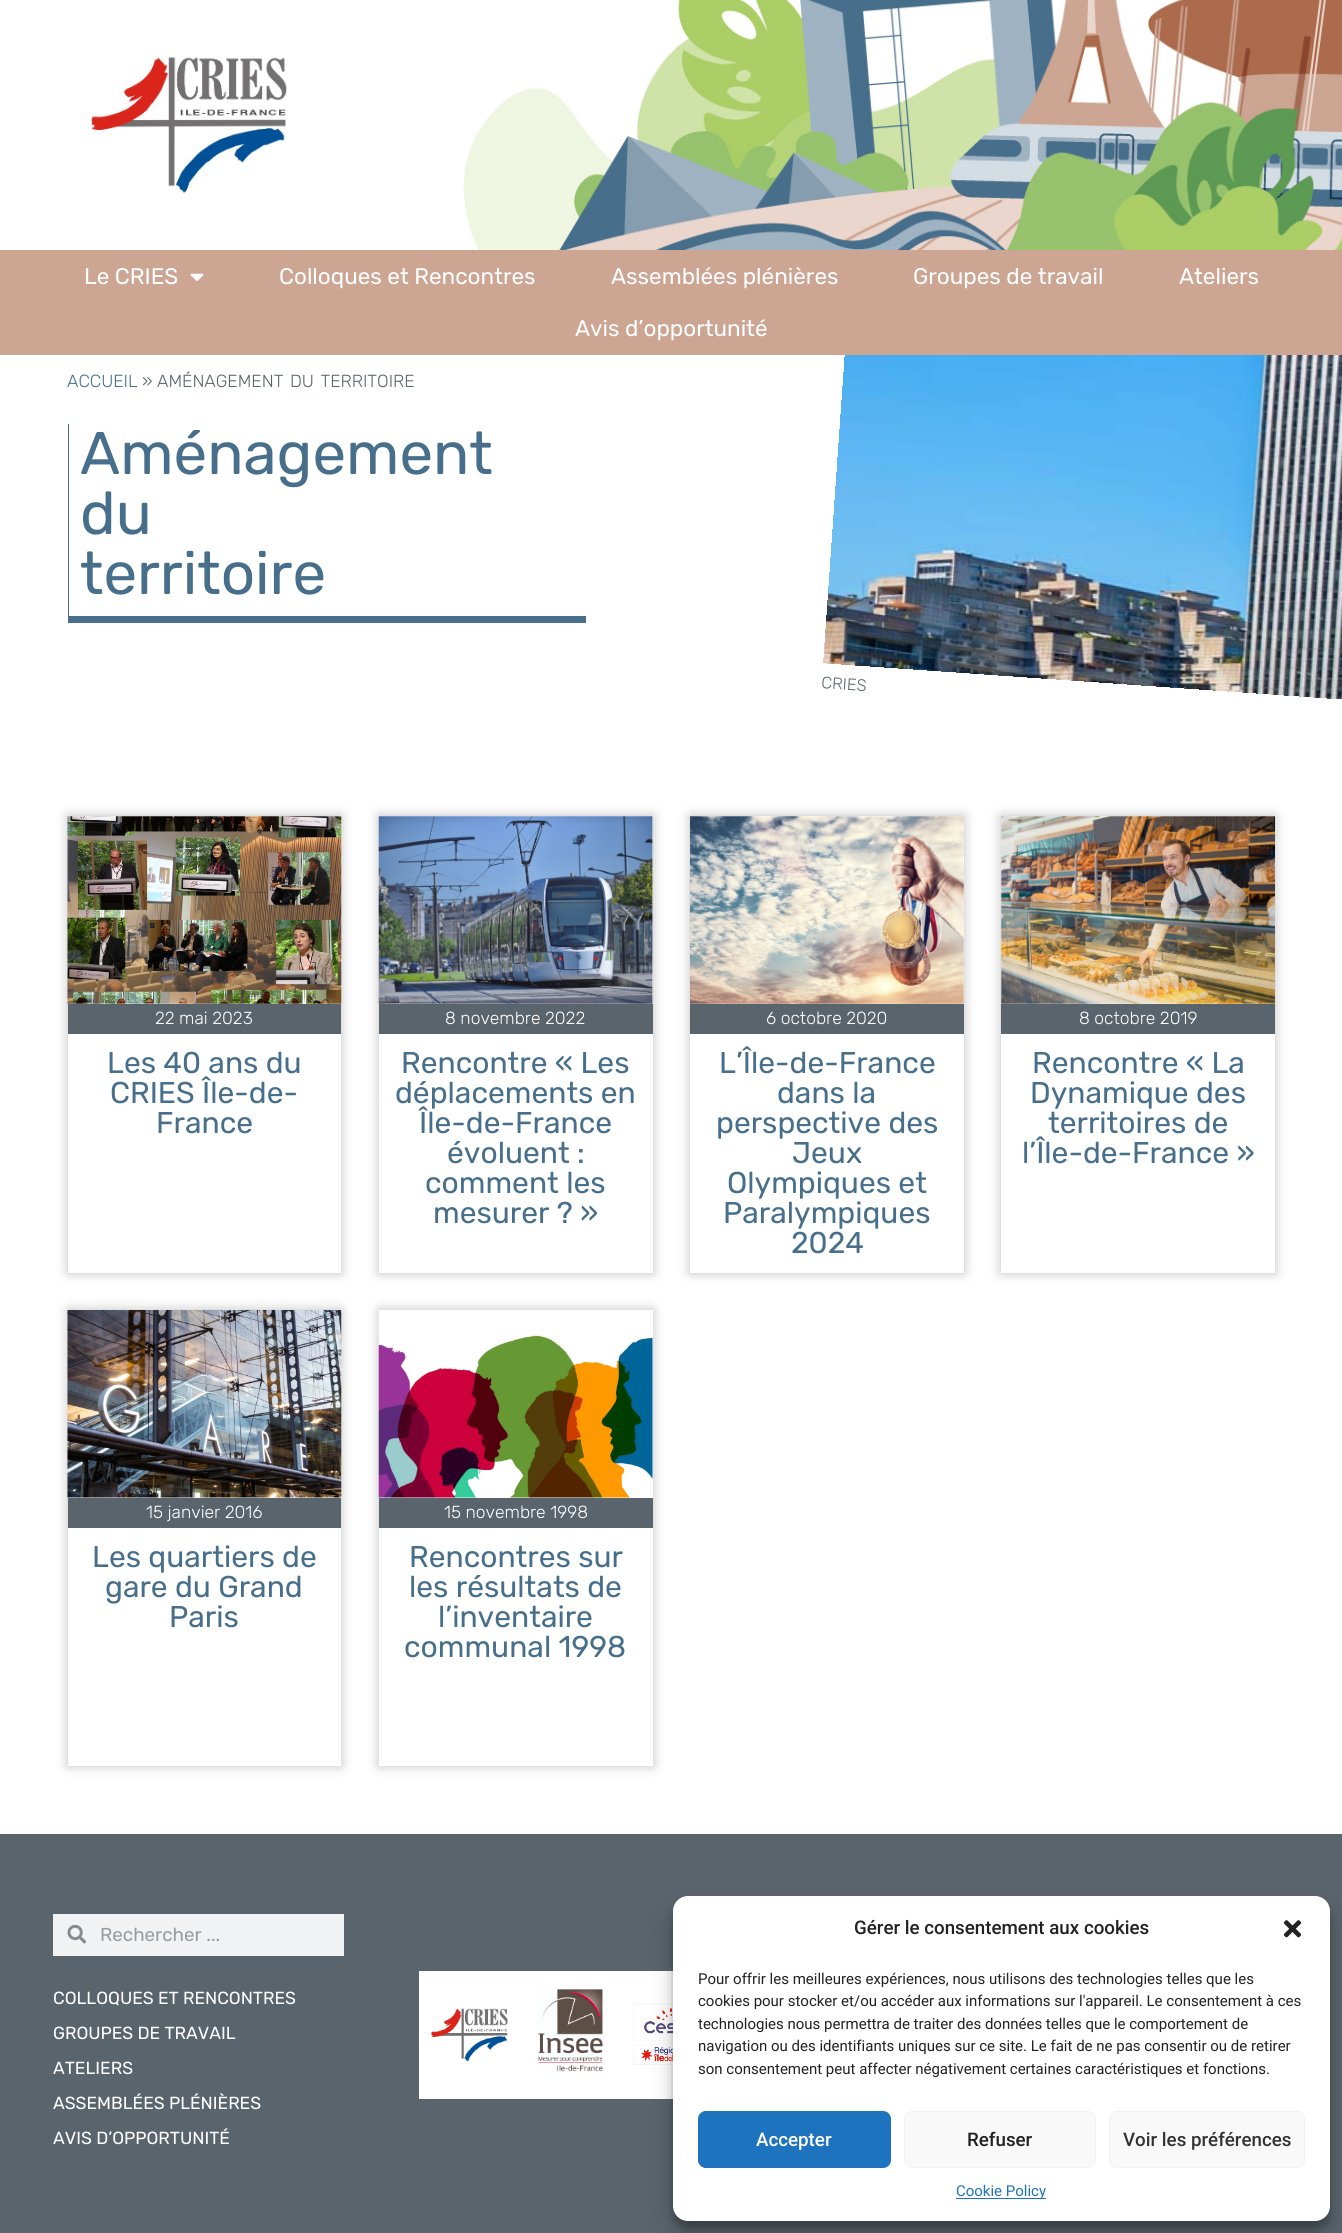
import math
import cairocffi as cairo

surface = cairo.ImageSurface(cairo.FORMAT_RGB24, 1342, 2233)
cr = cairo.Context(surface)
options = cairo.FontOptions()
options.set_hint_metrics(cairo.HINT_METRICS_OFF)
options.set_hint_style(cairo.HINT_STYLE_NONE)
cr.set_font_options(options)
cr.set_miter_limit(4)


def use_color(code):
    cr.set_source_rgb(*(v / 255 for v in bytes.fromhex(code[-6:])))


def spaced_text(x, y, s, letter, word):
    cr.move_to(x, y)
    for ch in s:
        cr.show_text(ch)
        cr.rel_move_to(letter + word * (ch == ' '), 0)


def round_rect(x, y, w, h, r):
    cr.new_sub_path()
    for i, (u, v) in enumerate([(x + w - r, y + h - r), (x + r, y + h - r), (x + r, y + r), (x + w - r, y + r)]):
        cr.arc(u, v, r, i * math.pi / 2, (i + 1) * math.pi / 2)
    cr.close_path()


def shadow(x, y, w, h, r, blur, alpha):
    cr.push_group_with_content(cairo.CONTENT_ALPHA)
    cr.set_operator(cairo.OPERATOR_SOURCE)
    for i in range(15, -16, -2):
        e = blur * i / 6
        if min(w, h) + 2 * e > 0:
            cr.set_source_rgba(0, 0, 0, alpha * math.erfc((i - 1) / 8.5) / 2)
            round_rect(x - e, y - e, w + 2 * e, h + 2 * e, max(0, min(r + e + blur * .6, min(w, h) / 2 + e)))
            cr.fill()
    cr.mask(cr.pop_group())


def picture(path, x, y, w, h):
    cr.save()
    cr.set_source_surface(cairo.ImageSurface.create_from_png(path), x, y)
    cr.rectangle(x, y, w, h)
    cr.fill()
    cr.restore()


use_color("#ffffff")
cr.paint()
picture("img1.png", 463, 0, 879, 250)
picture("img2.png", 91, 57, 196, 136)
use_color("#cca593")
cr.rectangle(0, 250, 1342, 105)
cr.fill()
cr.select_font_face("Rubik")
cr.set_font_size(22.5)
use_color("#ffffff")
cr.move_to(84, 284)
cr.show_text("Le CRIES")
picture("img3.png", 190, 273, 14, 9)
cr.move_to(279, 284)
cr.show_text("Colloques et Rencontres")
cr.move_to(611, 284)
cr.show_text("Assemblées plénières")
cr.move_to(913, 284)
cr.show_text("Groupes de travail")
cr.move_to(1179, 284)
cr.show_text("Ateliers")
cr.move_to(575, 336)
cr.show_text("Avis d’opportunité")
cr.select_font_face("Rubik Light")
cr.set_font_size(17.5)
use_color("#476f8b")
cr.move_to(67, 387)
cr.show_text("ACCUEIL")
use_color("#5a646c")
cr.move_to(142, 387)
cr.show_text("»")
spaced_text(157, 387, "AMÉNAGEMENT DU TERRITOIRE", 0, 2)
use_color("#476f8b")
cr.rectangle(68, 616, 518, 7)
cr.fill()
cr.rectangle(68, 424, 1, 199)
cr.fill()
cr.select_font_face("Rubik")
cr.set_font_size(60)
cr.move_to(80, 474)
cr.show_text("Aménagement")
cr.move_to(80, 534)
cr.show_text("du")
cr.move_to(80, 594)
cr.show_text("territoire")
picture("img4.png", 823, 355, 519, 344)
cr.select_font_face("Rubik Light")
cr.set_font_size(16.5)
use_color("#5a646c")
cr.save()
cr.translate(821, 688)
cr.rotate(4 * math.pi / 180)
cr.move_to(0, 0)
cr.show_text("CRIES")
cr.restore()
use_color("#000000")
shadow(68, 816, 273, 457, 0, 6, 0.25)
use_color("#ffffff")
cr.rectangle(68, 816, 273, 457)
cr.fill()
picture("img5.png", 67, 816, 275, 188)
use_color("#5a646c")
cr.rectangle(68, 1004, 273, 30)
cr.fill()
cr.set_font_size(17.5)
use_color("#ffffff")
cr.move_to(155, 1024)
cr.show_text("22 mai 2023")
cr.select_font_face("Rubik")
cr.set_font_size(30)
use_color("#476f8b")
cr.move_to(107, 1073)
cr.show_text("Les 40 ans du")
cr.move_to(110, 1103)
cr.show_text("CRIES Île-de-")
cr.move_to(156, 1133)
cr.show_text("France")
use_color("#000000")
shadow(379, 816, 274, 457, 0, 6, 0.25)
use_color("#ffffff")
cr.rectangle(379, 816, 274, 457)
cr.fill()
picture("img6.png", 378, 816, 275, 188)
use_color("#5a646c")
cr.rectangle(379, 1004, 274, 30)
cr.fill()
cr.select_font_face("Rubik Light")
cr.set_font_size(17.5)
use_color("#ffffff")
cr.move_to(445, 1024)
cr.show_text("8 novembre 2022")
cr.select_font_face("Rubik")
cr.set_font_size(30)
use_color("#476f8b")
cr.move_to(401, 1073)
cr.show_text("Rencontre « Les")
cr.move_to(395, 1103)
cr.show_text("déplacements en")
cr.move_to(419, 1133)
cr.show_text("Île-de-France")
cr.move_to(447, 1163)
cr.show_text("évoluent :")
cr.move_to(425, 1193)
cr.show_text("comment les")
cr.move_to(433, 1223)
cr.show_text("mesurer ? »")
use_color("#000000")
shadow(690, 816, 274, 457, 0, 6, 0.25)
use_color("#ffffff")
cr.rectangle(690, 816, 274, 457)
cr.fill()
picture("img7.png", 690, 816, 274, 188)
use_color("#5a646c")
cr.rectangle(690, 1004, 274, 30)
cr.fill()
cr.select_font_face("Rubik Light")
cr.set_font_size(17.5)
use_color("#ffffff")
cr.move_to(766, 1024)
cr.show_text("6 octobre 2020")
cr.select_font_face("Rubik")
cr.set_font_size(30)
use_color("#476f8b")
cr.move_to(719, 1073)
cr.show_text("L’Île-de-France")
cr.move_to(777, 1103)
cr.show_text("dans la")
cr.move_to(716, 1133)
cr.show_text("perspective des")
cr.move_to(792, 1163)
cr.show_text("Jeux")
cr.move_to(727, 1193)
cr.show_text("Olympiques et")
cr.move_to(723, 1223)
cr.show_text("Paralympiques")
cr.move_to(791, 1253)
cr.show_text("2024")
use_color("#000000")
shadow(1001, 816, 274, 457, 0, 6, 0.25)
use_color("#ffffff")
cr.rectangle(1001, 816, 274, 457)
cr.fill()
picture("img8.png", 1001, 816, 274, 188)
use_color("#5a646c")
cr.rectangle(1001, 1004, 274, 30)
cr.fill()
cr.select_font_face("Rubik Light")
cr.set_font_size(17.5)
use_color("#ffffff")
cr.move_to(1079, 1024)
cr.show_text("8 octobre 2019")
cr.select_font_face("Rubik")
cr.set_font_size(30)
use_color("#476f8b")
cr.move_to(1032, 1073)
cr.show_text("Rencontre « La")
cr.move_to(1030, 1103)
cr.show_text("Dynamique des")
cr.move_to(1048, 1133)
cr.show_text("territoires de")
cr.move_to(1022, 1163)
cr.show_text("l’Île-de-France »")
cr.save()
cr.set_fill_rule(cairo.FILL_RULE_EVEN_ODD)
cr.new_path()
cr.move_to(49, 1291)
cr.line_to(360, 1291)
cr.line_to(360, 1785)
cr.line_to(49, 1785)
cr.close_path()
cr.move_to(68, 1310)
cr.line_to(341, 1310)
cr.line_to(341, 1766)
cr.line_to(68, 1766)
cr.close_path()
cr.clip()
use_color("#000000")
shadow(68, 1310, 273, 456, 0, 6, 0.25)
cr.restore()
picture("img9.png", 67, 1310, 275, 188)
use_color("#5a646c")
cr.rectangle(68, 1498, 273, 30)
cr.fill()
cr.select_font_face("Rubik Light")
cr.set_font_size(17.5)
use_color("#ffffff")
cr.move_to(146, 1518)
cr.show_text("15 janvier 2016")
cr.select_font_face("Rubik")
cr.set_font_size(30)
use_color("#476f8b")
cr.move_to(92, 1567)
cr.show_text("Les quartiers de")
cr.move_to(105, 1597)
cr.show_text("gare du Grand")
cr.move_to(169, 1627)
cr.show_text("Paris")
use_color("#000000")
shadow(379, 1310, 274, 456, 0, 6, 0.25)
use_color("#ffffff")
cr.rectangle(379, 1310, 274, 456)
cr.fill()
picture("img10.png", 378, 1313, 275, 185)
use_color("#5a646c")
cr.rectangle(379, 1498, 274, 30)
cr.fill()
cr.select_font_face("Rubik Light")
cr.set_font_size(17.5)
use_color("#ffffff")
cr.move_to(444, 1518)
cr.show_text("15 novembre 1998")
cr.select_font_face("Rubik")
cr.set_font_size(30)
use_color("#476f8b")
cr.move_to(409, 1567)
cr.show_text("Rencontres sur")
cr.move_to(409, 1597)
cr.show_text("les résultats de")
cr.move_to(438, 1627)
cr.show_text("l’inventaire")
cr.move_to(404, 1657)
cr.show_text("communal 1998")
use_color("#5a646c")
cr.rectangle(0, 1834, 1342, 399)
cr.fill()
use_color("#f1f2f3")
cr.rectangle(53, 1914, 291, 42)
cr.fill()
picture("img11.png", 67, 1924, 20, 20)
cr.set_font_size(18.75)
use_color("#969da2")
cr.move_to(100, 1941)
cr.show_text("Rechercher ...")
cr.set_font_size(17.5)
use_color("#ffffff")
cr.move_to(53, 2004)
cr.show_text("COLLOQUES ET RENCONTRES")
cr.move_to(53, 2039)
cr.show_text("GROUPES DE TRAVAIL")
cr.move_to(53, 2074)
cr.show_text("ATELIERS")
cr.move_to(53, 2109)
cr.show_text("ASSEMBLÉES PLÉNIÈRES")
cr.move_to(53, 2144)
cr.show_text("AVIS D’OPPORTUNITÉ")
cr.rectangle(419, 1971, 254, 128)
cr.fill()
picture("img12.png", 431, 2008, 77, 54)
picture("img13.png", 538, 1989, 65, 83)
picture("img14.png", 633, 2003, 40, 62)
use_color("#000000")
shadow(673, 1904, 657, 325, 15, 4, 0.23)
shadow(673, 1909, 657, 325, 15, 12.5, 0.19)
use_color("#ffffff")
round_rect(673, 1896, 657, 325, 15)
cr.fill()
cr.select_font_face("Roboto Medium")
cr.set_font_size(18.75)
use_color("#222222")
cr.move_to(854, 1934)
cr.show_text("Gérer le consentement aux cookies")
picture("img15.png", 1283, 1920, 19, 18)
cr.select_font_face("Roboto")
cr.set_font_size(15)
cr.move_to(698, 1984)
cr.show_text("Pour offrir les meilleures expériences, nous utilisons des technologies telles que les")
cr.move_to(698, 2006)
cr.show_text("cookies pour stocker et/ou accéder aux informations sur l'appareil. Le consentement à ces")
cr.move_to(698, 2029)
cr.show_text("technologies nous permettra de traiter des données telles que le comportement de")
cr.move_to(698, 2051)
cr.show_text("navigation ou des identifiants uniques sur ce site. Le fait de ne pas consentir ou de retirer")
cr.move_to(698, 2074)
cr.show_text("son consentement peut affecter négativement certaines caractéristiques et fonctions.")
use_color("#1e73be")
round_rect(698.5, 2111.5, 192, 56, 7.5)
cr.fill_preserve()
cr.set_line_width(1)
cr.stroke()
cr.select_font_face("Roboto Medium")
cr.set_font_size(18.75)
use_color("#ffffff")
cr.move_to(756, 2146)
cr.show_text("Accepter")
use_color("#f9f9f9")
round_rect(904.5, 2111.5, 191, 56, 7.5)
cr.fill_preserve()
use_color("#f2f2f2")
cr.stroke()
use_color("#222222")
cr.move_to(967, 2146)
cr.show_text("Refuser")
use_color("#f9f9f9")
round_rect(1109.5, 2111.5, 195, 56, 7.5)
cr.fill_preserve()
use_color("#f2f2f2")
cr.stroke()
use_color("#333333")
cr.move_to(1123, 2146)
cr.show_text("Voir les préférences")
use_color("#1e73be")
cr.rectangle(956, 2198, 90, 1)
cr.fill()
cr.select_font_face("Roboto")
cr.set_font_size(15)
cr.move_to(956, 2196)
cr.show_text("Cookie Policy")
surface.write_to_png("result.png")
